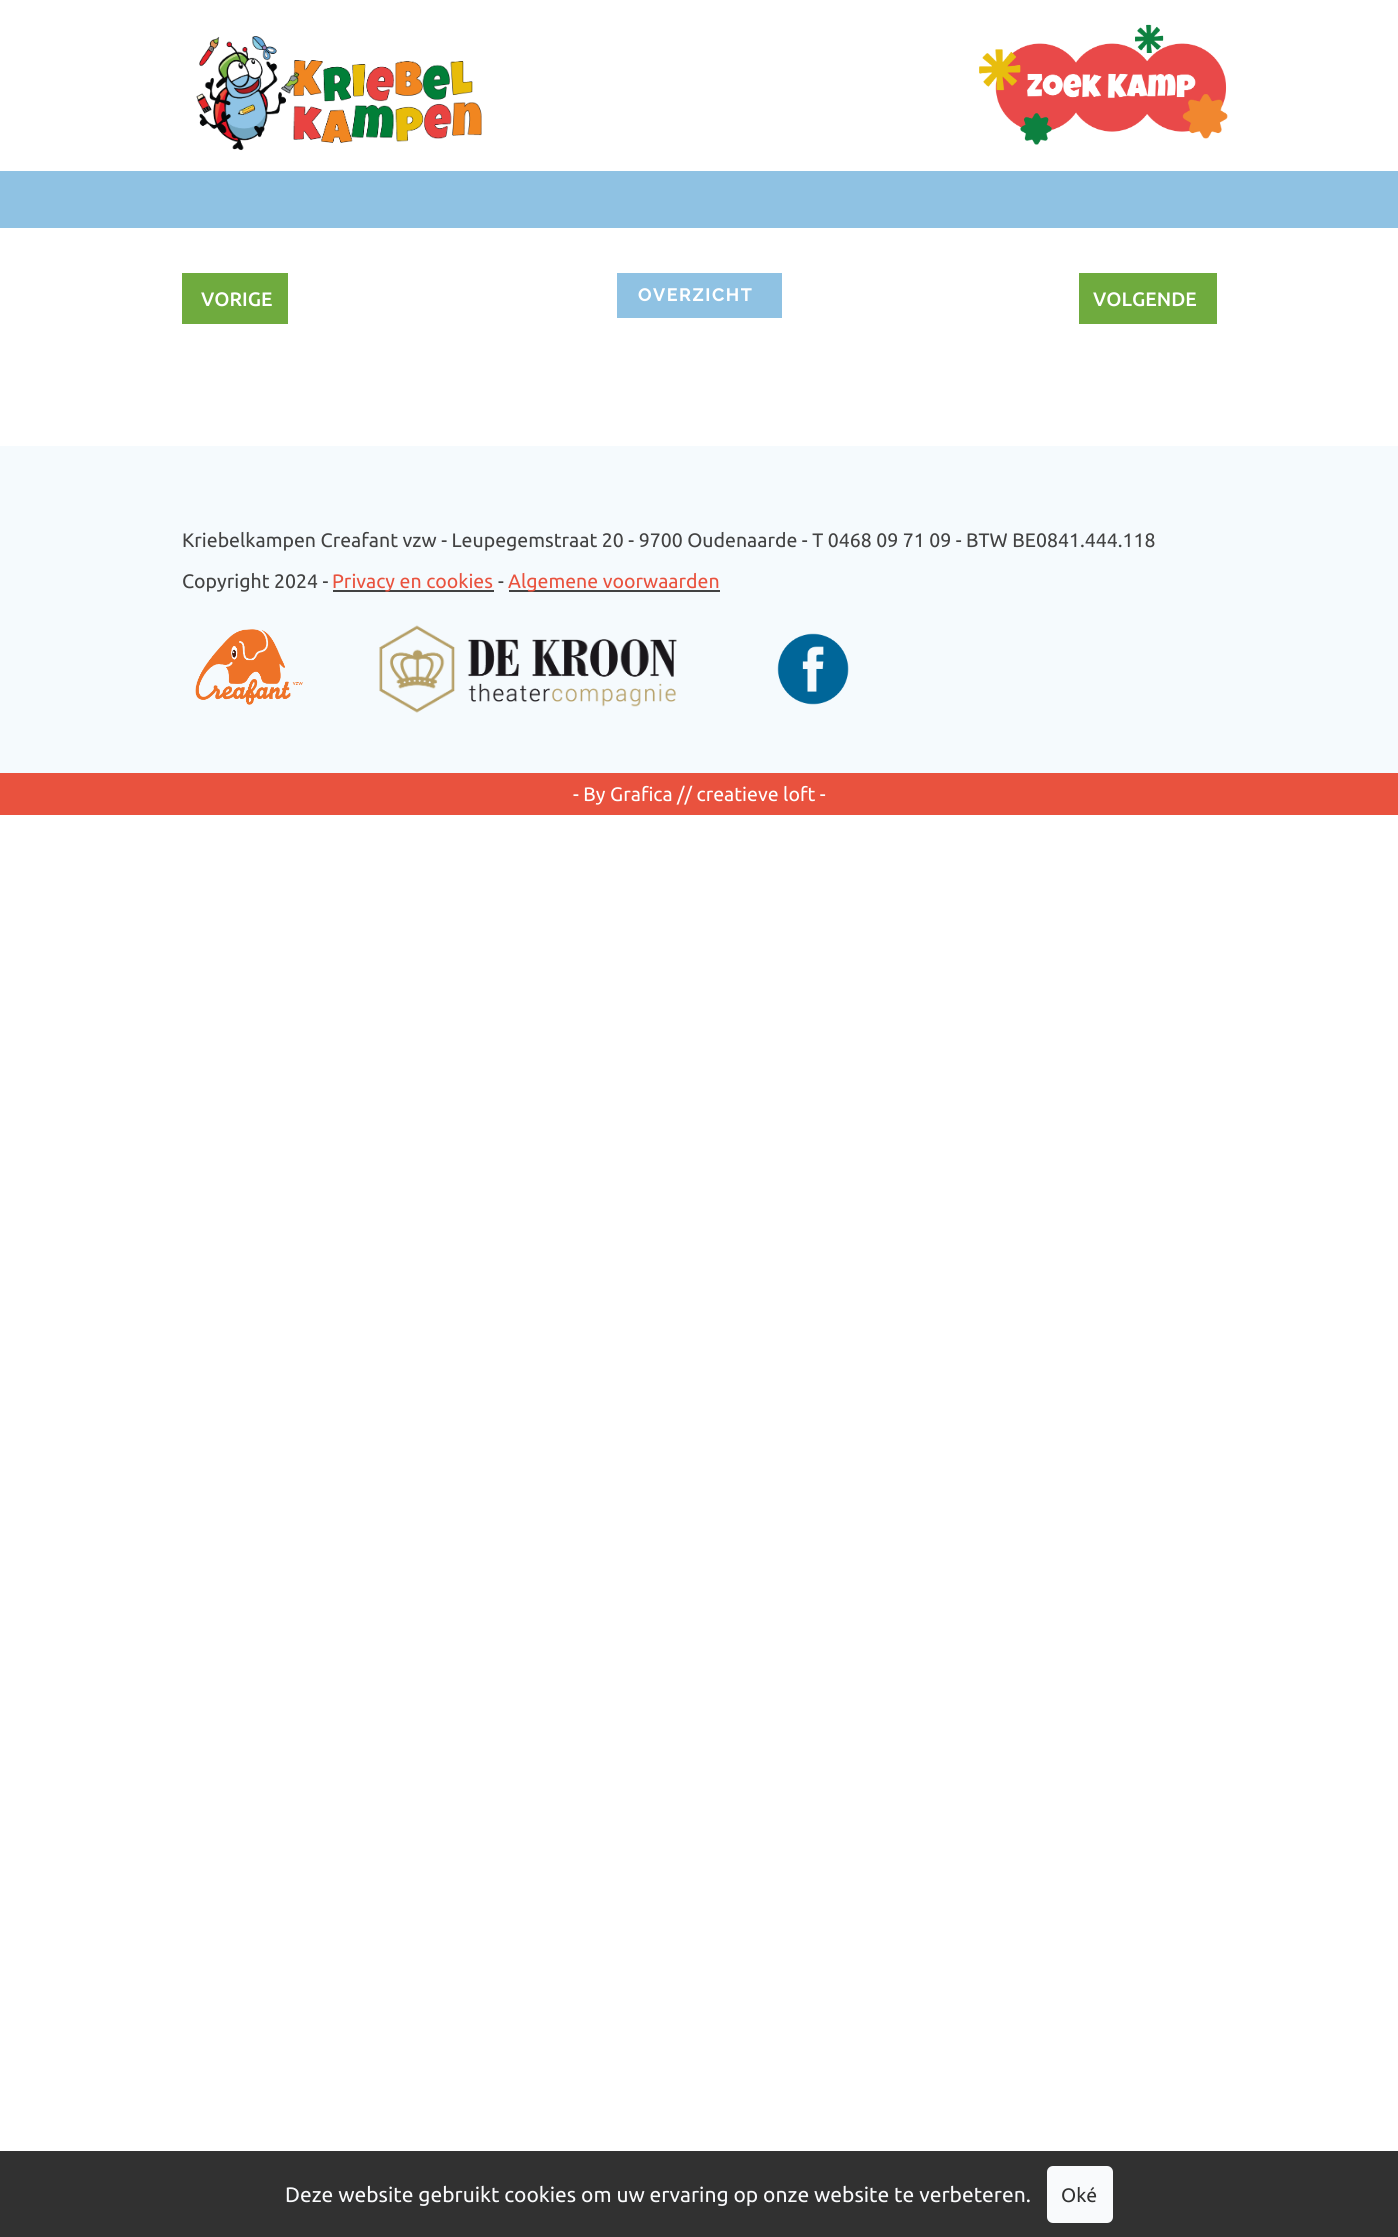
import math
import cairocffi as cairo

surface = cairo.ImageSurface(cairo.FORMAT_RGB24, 1398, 2237)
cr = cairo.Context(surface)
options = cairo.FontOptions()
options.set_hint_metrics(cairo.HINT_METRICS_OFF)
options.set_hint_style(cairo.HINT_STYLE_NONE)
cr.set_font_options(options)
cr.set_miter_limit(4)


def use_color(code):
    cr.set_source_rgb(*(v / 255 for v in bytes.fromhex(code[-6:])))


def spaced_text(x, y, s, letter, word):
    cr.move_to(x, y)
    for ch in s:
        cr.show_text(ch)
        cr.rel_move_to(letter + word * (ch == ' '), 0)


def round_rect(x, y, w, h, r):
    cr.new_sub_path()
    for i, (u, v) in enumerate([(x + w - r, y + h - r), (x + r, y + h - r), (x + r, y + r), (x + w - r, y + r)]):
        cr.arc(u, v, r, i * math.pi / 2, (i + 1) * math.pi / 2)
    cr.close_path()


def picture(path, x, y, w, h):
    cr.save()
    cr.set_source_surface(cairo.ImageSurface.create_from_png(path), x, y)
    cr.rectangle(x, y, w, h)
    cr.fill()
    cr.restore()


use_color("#ffffff")
cr.paint()
use_color("#8fc2e3")
cr.rectangle(0, 171, 1398, 57)
cr.fill()
picture("img1.png", 979, 24, 249, 121)
picture("img2.png", 196, 36, 286, 115)
use_color("#6fab3e")
cr.rectangle(182, 273, 106, 51)
cr.fill()
cr.select_font_face("Ubuntu Medium")
cr.set_font_size(19.5)
use_color("#ffffff")
cr.move_to(201, 306)
cr.show_text("VORIGE")
use_color("#8fc2e3")
cr.rectangle(617, 273, 165, 45)
cr.fill()
cr.select_font_face("Raleway", cairo.FONT_SLANT_NORMAL, cairo.FONT_WEIGHT_BOLD)
cr.set_font_size(18)
use_color("#ffffff")
spaced_text(638, 301, "OVERZICHT", 1.5, 0)
use_color("#6fab3e")
cr.rectangle(1079, 273, 138, 51)
cr.fill()
cr.select_font_face("Ubuntu Medium")
cr.set_font_size(19.5)
use_color("#ffffff")
cr.move_to(1093, 306)
cr.show_text("VOLGENDE")
use_color("#f5fafd")
cr.rectangle(0, 446, 1398, 327)
cr.fill()
cr.select_font_face("Ubuntu")
use_color("#424242")
cr.move_to(182, 547)
cr.show_text("Kriebelkampen Creafant vzw - Leupegemstraat 20 - 9700 Oudenaarde - T 0468 09 71 09 - BTW BE0841.444.118")
cr.move_to(182, 588)
cr.show_text("Copyright 2024 -")
cr.rectangle(333, 590, 161, 2)
cr.fill()
use_color("#e9523e")
cr.move_to(332, 588)
cr.show_text("Privacy en cookies")
use_color("#424242")
cr.move_to(498, 588)
cr.show_text("-")
cr.rectangle(509, 590, 211, 2)
cr.fill()
use_color("#e9523e")
cr.move_to(508, 588)
cr.show_text("Algemene voorwaarden")
picture("img3.png", 195, 629, 108, 76)
picture("img4.png", 379, 625, 298, 88)
picture("img5.png", 777, 633, 72, 72)
cr.rectangle(0, 773, 1398, 42)
cr.fill()
use_color("#ffffff")
cr.move_to(573, 801)
cr.show_text("- By Grafica // creatieve loft -")
use_color("#313131")
cr.rectangle(0, 2151, 1398, 86)
cr.fill()
cr.set_font_size(21)
use_color("#f9fafc")
cr.move_to(285, 2202)
cr.show_text("Deze website gebruikt cookies om uw ervaring op onze website te verbeteren.")
round_rect(1047, 2166, 66, 57, 6)
cr.fill()
cr.set_font_size(19.5)
use_color("#313131")
cr.move_to(1061, 2202)
cr.show_text("Oké")
surface.write_to_png("result.png")
